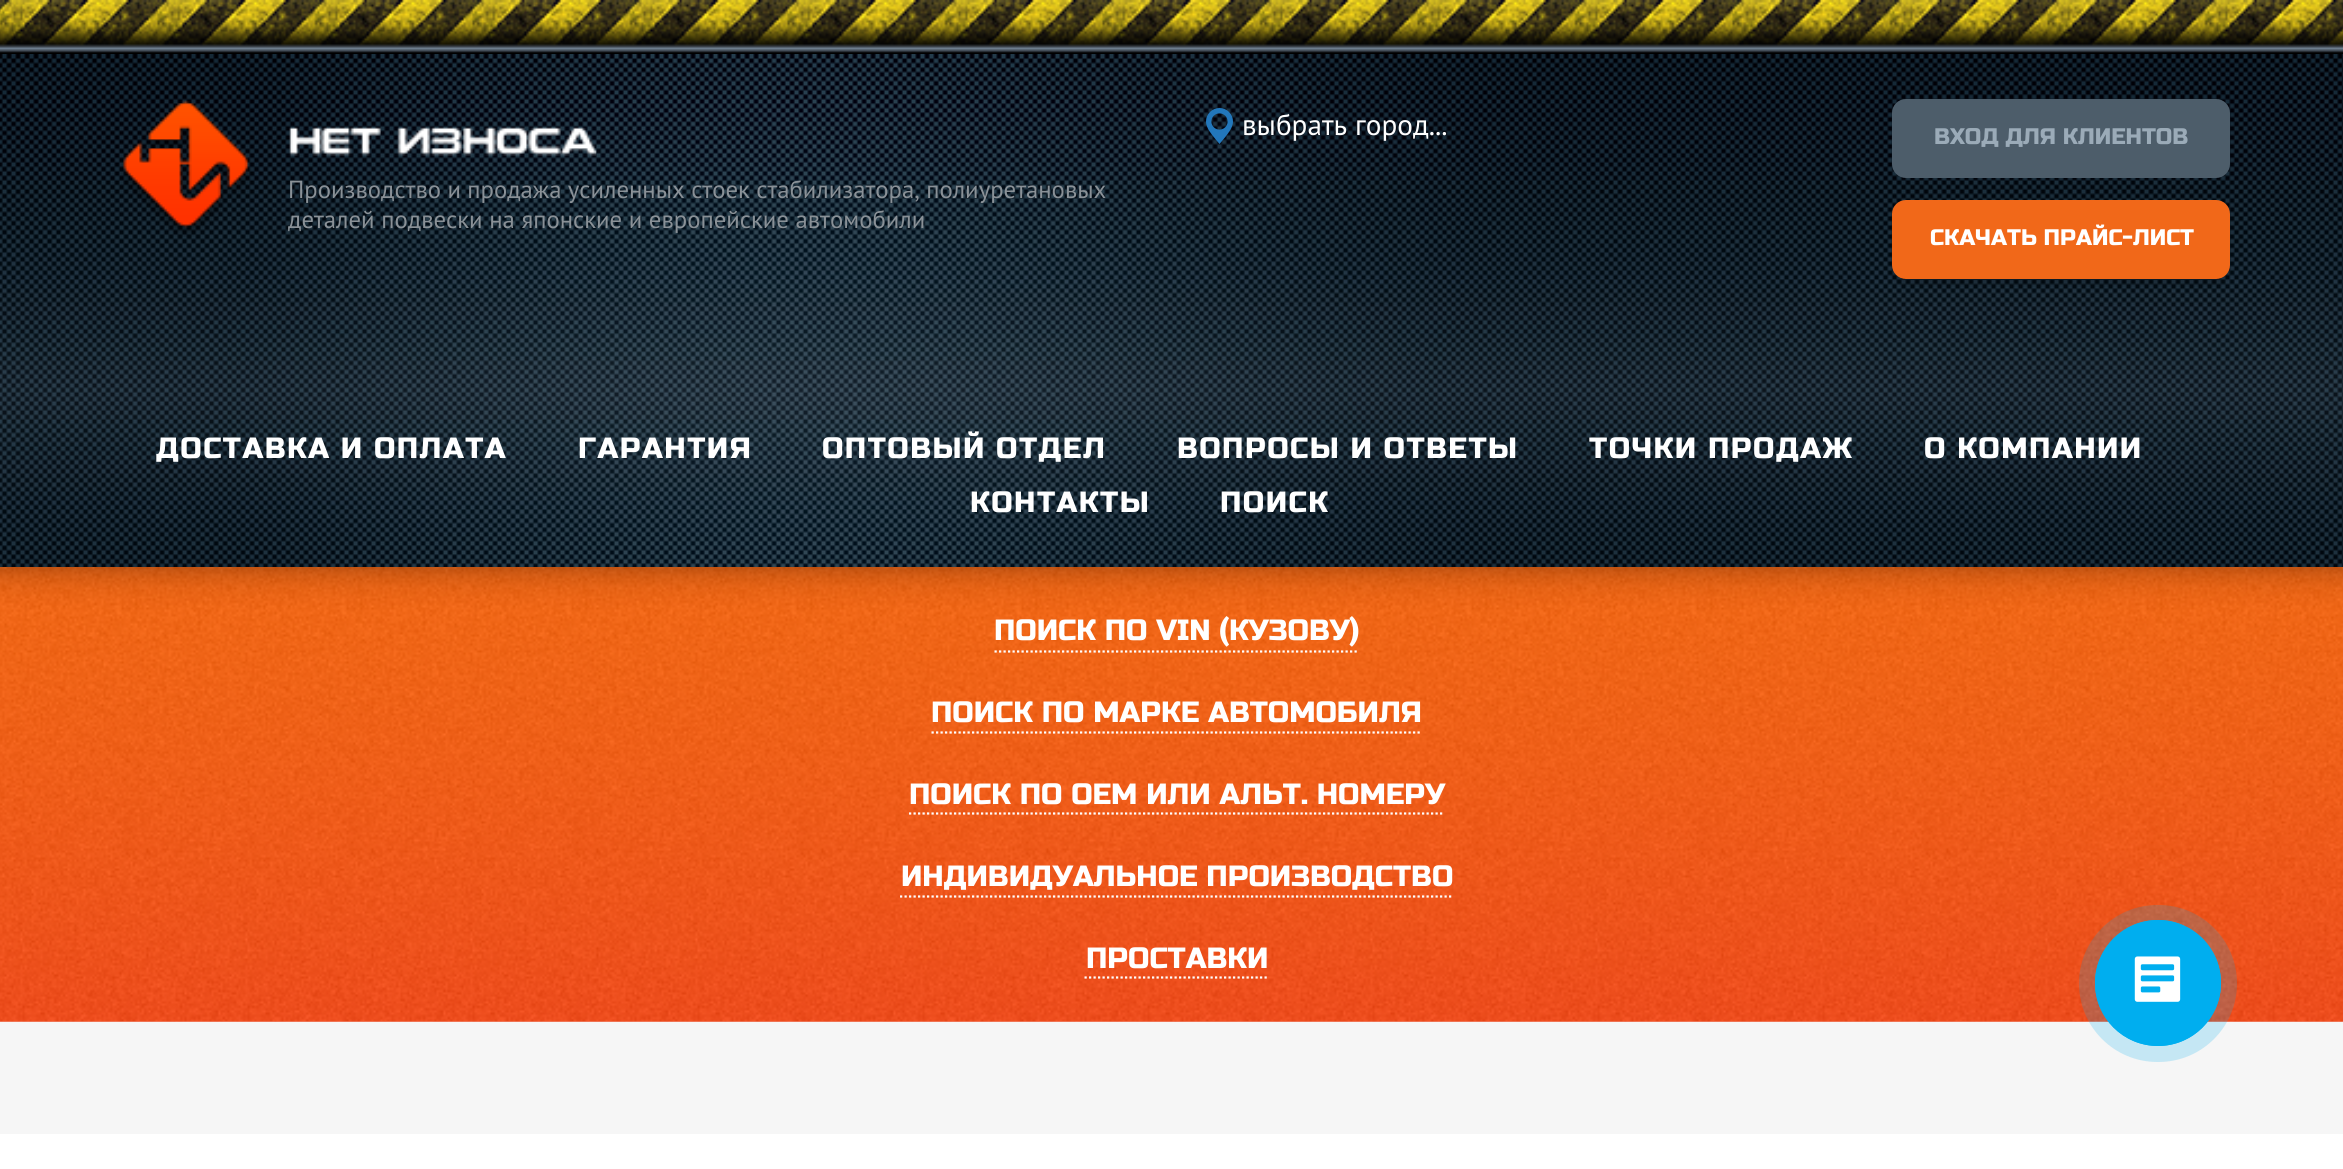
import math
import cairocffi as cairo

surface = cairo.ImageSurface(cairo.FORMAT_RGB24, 2343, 1169)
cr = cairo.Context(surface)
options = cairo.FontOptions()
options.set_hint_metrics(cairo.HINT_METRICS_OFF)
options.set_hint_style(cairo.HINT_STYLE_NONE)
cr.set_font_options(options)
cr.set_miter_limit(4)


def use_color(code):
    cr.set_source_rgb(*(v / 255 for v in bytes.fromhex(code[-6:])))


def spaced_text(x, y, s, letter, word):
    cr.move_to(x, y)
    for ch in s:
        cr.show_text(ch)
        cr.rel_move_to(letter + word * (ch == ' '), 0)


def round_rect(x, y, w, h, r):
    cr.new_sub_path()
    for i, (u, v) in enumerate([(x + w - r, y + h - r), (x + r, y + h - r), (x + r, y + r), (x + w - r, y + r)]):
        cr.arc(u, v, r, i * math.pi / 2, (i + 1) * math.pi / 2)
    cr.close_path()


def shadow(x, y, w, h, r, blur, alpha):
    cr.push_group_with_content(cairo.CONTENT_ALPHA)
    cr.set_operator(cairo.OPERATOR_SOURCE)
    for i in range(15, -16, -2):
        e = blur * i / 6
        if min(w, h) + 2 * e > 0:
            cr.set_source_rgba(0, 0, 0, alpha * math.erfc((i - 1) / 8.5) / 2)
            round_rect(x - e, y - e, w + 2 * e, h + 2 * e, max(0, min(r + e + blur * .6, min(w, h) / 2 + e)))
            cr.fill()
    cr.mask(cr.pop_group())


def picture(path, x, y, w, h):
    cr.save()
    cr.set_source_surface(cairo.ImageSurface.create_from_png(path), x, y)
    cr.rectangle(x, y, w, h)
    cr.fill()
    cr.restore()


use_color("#f6f6f6")
cr.paint()
picture("img1.png", 0, 0, 2343, 54)
picture("img2.png", 0, 54, 2343, 513)
picture("img3.png", 120, 100, 477, 137)
cr.select_font_face("PT Sans")
cr.set_font_size(24.75)
use_color("#8a9197")
spaced_text(288, 198, "Производство и продажа усиленных стоек стабилизатора, полиуретановых", 0, -0.25)
cr.move_to(288, 228)
cr.show_text("деталей подвески на японские и европейские автомобили")
picture("img4.png", 1206, 108, 27, 36)
cr.set_font_size(29.25)
use_color("#ffffff")
cr.move_to(1242, 135)
cr.show_text("выбрать город...")
use_color("#4d5d6a")
round_rect(1892, 99, 338, 79, 14)
cr.fill()
cr.select_font_face("Russo One")
cr.set_font_size(22.5)
use_color("#9babb8")
cr.move_to(1934, 144)
cr.show_text("ВХОД ДЛЯ КЛИЕНТОВ")
use_color("#000000")
shadow(1892, 207, 338, 79, 14, 2, 0.15)
use_color("#f16819")
round_rect(1892, 200, 338, 79, 14)
cr.fill()
use_color("#ffffff")
cr.move_to(1930, 245)
cr.show_text("СКАЧАТЬ ПРАЙС-ЛИСТ")
cr.set_font_size(29.25)
spaced_text(156, 458, "ДОСТАВКА И ОПЛАТА", 1.5, 0)
spaced_text(578, 458, "ГАРАНТИЯ", 1.5, 0)
spaced_text(822, 458, "ОПТОВЫЙ ОТДЕЛ", 1.5, 0)
spaced_text(1177, 458, "ВОПРОСЫ И ОТВЕТЫ", 1.5, 0)
spaced_text(1589, 458, "ТОЧКИ ПРОДАЖ", 1.5, 0)
spaced_text(1924, 458, "О КОМПАНИИ", 1.5, 0)
spaced_text(970, 512, "КОНТАКТЫ", 1.5, 0)
spaced_text(1220, 512, "ПОИСК", 1.5, 0)
picture("img5.png", 0, 1021, 2343, 1)
picture("img6.png", 0, 567, 2343, 455)
cr.move_to(994, 640)
cr.show_text("ПОИСК ПО VIN (КУЗОВУ)")
cr.new_path()
cr.move_to(994.5, 651.5)
cr.line_to(1359, 651.5)
cr.set_line_width(2.2)
cr.set_dash([2.25, 2.25])
cr.stroke()
cr.move_to(931, 722)
cr.show_text("ПОИСК ПО МАРКЕ АВТОМОБИЛЯ")
cr.new_path()
cr.move_to(931.5, 732.5)
cr.line_to(1422, 732.5)
cr.stroke()
cr.move_to(909, 804)
cr.show_text("ПОИСК ПО OEM ИЛИ АЛЬТ. НОМЕРУ")
cr.new_path()
cr.move_to(909, 813.5)
cr.line_to(1444.5, 813.5)
cr.stroke()
cr.move_to(901, 886)
cr.show_text("ИНДИВИДУАЛЬНОЕ ПРОИЗВОДСТВО")
cr.new_path()
cr.move_to(900, 896.5)
cr.line_to(1453.5, 896.5)
cr.stroke()
cr.move_to(1086, 968)
cr.show_text("ПРОСТАВКИ")
cr.new_path()
cr.move_to(1084.5, 977.5)
cr.line_to(1269, 977.5)
cr.stroke()
cr.rectangle(0, 1134, 2343, 35)
cr.fill()
cr.set_source_rgba(0, 0.682, 0.937, 0.2)
round_rect(2079, 905, 158, 157, 78.5)
cr.fill()
cr.arc(2158, 983, 62, 0, 2 * math.pi)
use_color("#00aeef")
cr.set_line_width(2)
cr.set_dash([])
cr.stroke()
cr.arc(2158, 983, 63, 0, 2 * math.pi)
cr.fill()
picture("img7.png", 2134, 956, 47, 46)
surface.write_to_png("result.png")
